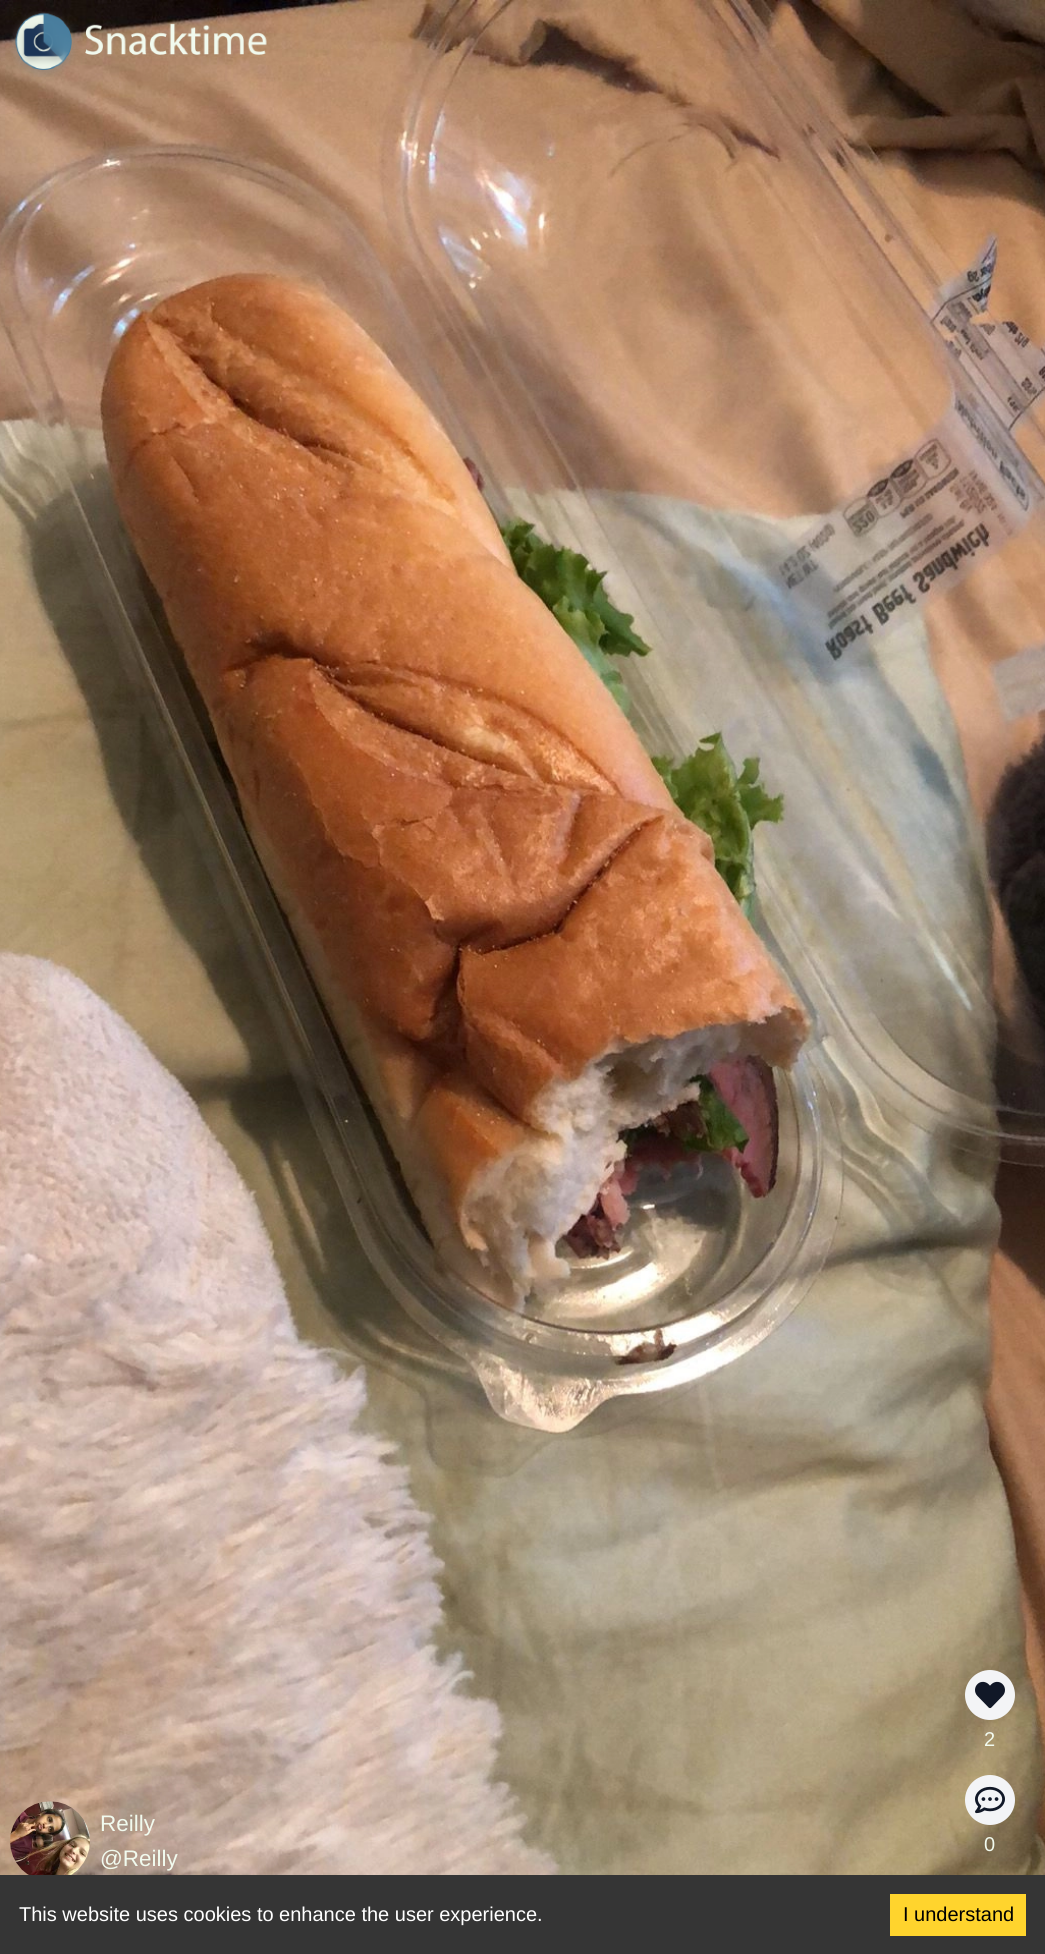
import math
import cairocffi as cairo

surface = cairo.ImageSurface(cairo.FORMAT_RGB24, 1045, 1954)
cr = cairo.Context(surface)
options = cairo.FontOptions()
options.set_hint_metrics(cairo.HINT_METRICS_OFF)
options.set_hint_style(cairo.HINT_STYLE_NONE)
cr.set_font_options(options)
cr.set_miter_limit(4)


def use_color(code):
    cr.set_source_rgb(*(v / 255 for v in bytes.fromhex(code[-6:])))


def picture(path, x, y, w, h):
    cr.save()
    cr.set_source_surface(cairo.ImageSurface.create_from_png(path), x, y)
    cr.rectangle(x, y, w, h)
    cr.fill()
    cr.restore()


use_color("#ffffff")
cr.paint()
picture("img1.png", 0, 0, 1045, 1875)
picture("img2.png", 10, 11, 257, 66)
picture("img3.png", 10, 1801, 80, 74)
cr.select_font_face("Liberation Sans")
cr.set_font_size(22.5)
use_color("#f1faee")
cr.move_to(100, 1831)
cr.show_text("Reilly")
cr.move_to(100, 1866)
cr.show_text("@Reilly")
use_color("#f3f4f6")
cr.new_path()
cr.arc(990, 1695, 25, 0, 2 * math.pi)
cr.fill()
picture("img4.png", 975, 1681, 30, 28)
cr.set_font_size(20)
use_color("#f1faee")
cr.move_to(984, 1746)
cr.show_text("2")
use_color("#f3f4f6")
cr.new_path()
cr.arc(990, 1800, 25, 0, 2 * math.pi)
cr.fill()
picture("img5.png", 975, 1786, 30, 28)
use_color("#f1faee")
cr.move_to(984, 1851)
cr.show_text("0")
use_color("#353535")
cr.rectangle(0, 1875, 1045, 79)
cr.fill()
use_color("#ffffff")
cr.move_to(19, 1921)
cr.show_text("This website uses cookies to enhance the user experience.")
use_color("#ffd42d")
cr.rectangle(890, 1894, 136, 42)
cr.fill()
use_color("#000000")
cr.move_to(903, 1921)
cr.show_text("I understand")
surface.write_to_png("result.png")
